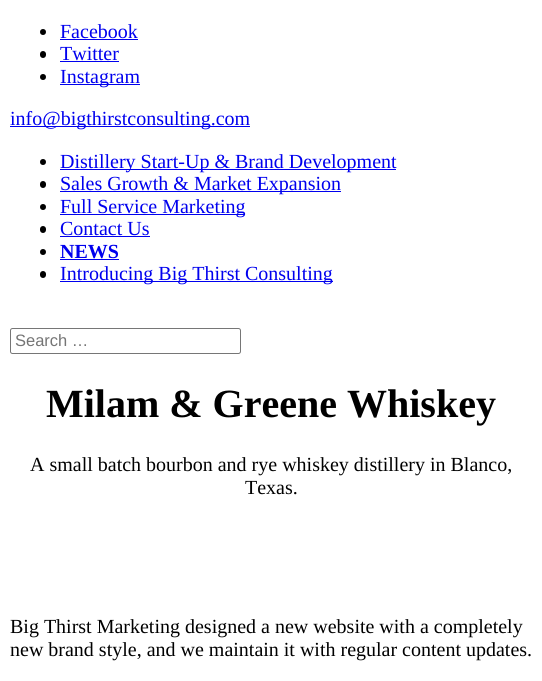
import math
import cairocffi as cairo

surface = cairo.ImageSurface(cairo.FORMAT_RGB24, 542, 681)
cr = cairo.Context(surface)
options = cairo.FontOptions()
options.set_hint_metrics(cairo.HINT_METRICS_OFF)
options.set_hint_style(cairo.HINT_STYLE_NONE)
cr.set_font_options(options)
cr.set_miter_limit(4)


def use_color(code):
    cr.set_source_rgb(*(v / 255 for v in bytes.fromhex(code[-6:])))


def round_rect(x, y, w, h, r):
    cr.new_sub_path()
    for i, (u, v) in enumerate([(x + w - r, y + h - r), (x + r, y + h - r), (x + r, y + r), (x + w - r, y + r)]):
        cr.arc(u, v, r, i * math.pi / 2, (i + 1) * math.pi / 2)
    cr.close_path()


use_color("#ffffff")
cr.paint()
use_color("#000000")
cr.arc(43, 32, 3, 0, 2 * math.pi)
cr.fill()
cr.select_font_face("Liberation Serif")
cr.set_font_size(20)
use_color("#0000ee")
cr.move_to(60, 38)
cr.show_text("Facebook")
cr.rectangle(60, 39, 78, 1)
cr.fill()
use_color("#000000")
round_rect(40, 51, 6, 7, 3)
cr.fill()
use_color("#0000ee")
cr.move_to(60, 60)
cr.show_text("Twitter")
cr.rectangle(60, 61, 59, 1)
cr.fill()
use_color("#000000")
cr.arc(43, 77, 3, 0, 2 * math.pi)
cr.fill()
use_color("#0000ee")
cr.rectangle(60, 84, 80, 1)
cr.fill()
cr.move_to(60, 83)
cr.show_text("Instagram")
cr.rectangle(10, 126, 240, 1)
cr.fill()
cr.move_to(10, 125)
cr.show_text("info@bigthirstconsulting.com")
use_color("#000000")
cr.new_path()
cr.arc(43, 162, 3, 0, 2 * math.pi)
cr.fill()
use_color("#0000ee")
cr.rectangle(60, 169, 336, 1)
cr.fill()
cr.move_to(60, 168)
cr.show_text("Distillery Start-Up & Brand Development")
use_color("#000000")
round_rect(40, 181, 6, 7, 3)
cr.fill()
use_color("#0000ee")
cr.rectangle(60, 191, 281, 1)
cr.fill()
cr.move_to(60, 190)
cr.show_text("Sales Growth & Market Expansion")
use_color("#000000")
cr.new_path()
cr.arc(43, 207, 3, 0, 2 * math.pi)
cr.fill()
use_color("#0000ee")
cr.rectangle(60, 214, 185, 1)
cr.fill()
cr.move_to(60, 213)
cr.show_text("Full Service Marketing")
use_color("#000000")
round_rect(40, 226, 6, 7, 3)
cr.fill()
use_color("#0000ee")
cr.move_to(60, 235)
cr.show_text("Contact Us")
cr.rectangle(60, 236, 90, 1)
cr.fill()
use_color("#000000")
cr.arc(43, 252, 3, 0, 2 * math.pi)
cr.fill()
cr.select_font_face("Liberation Serif", cairo.FONT_SLANT_NORMAL, cairo.FONT_WEIGHT_BOLD)
use_color("#0000ee")
cr.move_to(60, 258)
cr.show_text("NEWS")
cr.rectangle(60, 259, 59, 1)
cr.fill()
use_color("#000000")
round_rect(40, 271, 6, 7, 3)
cr.fill()
use_color("#0000ee")
cr.rectangle(60, 281, 273, 1)
cr.fill()
cr.select_font_face("Liberation Serif")
cr.move_to(60, 280)
cr.show_text("Introducing Big Thirst Consulting")
round_rect(10.5, 328.5, 230, 25, 2)
use_color("#767676")
cr.set_line_width(1)
cr.stroke()
cr.select_font_face("Liberation Sans")
cr.set_font_size(16.5)
use_color("#757575")
cr.move_to(15, 346)
cr.show_text("Search …")
cr.select_font_face("Liberation Serif", cairo.FONT_SLANT_NORMAL, cairo.FONT_WEIGHT_BOLD)
cr.set_font_size(40)
use_color("#000000")
cr.move_to(46, 417)
cr.show_text("Milam & Greene Whiskey")
cr.select_font_face("Liberation Serif")
cr.set_font_size(20)
cr.move_to(30, 471)
cr.show_text("A small batch bourbon and rye whiskey distillery in Blanco,")
cr.move_to(245, 494)
cr.show_text("Texas.")
cr.move_to(10, 633)
cr.show_text("Big Thirst Marketing designed a new website with a completely")
cr.move_to(10, 656)
cr.show_text("new brand style, and we maintain it with regular content updates.")
surface.write_to_png("result.png")
